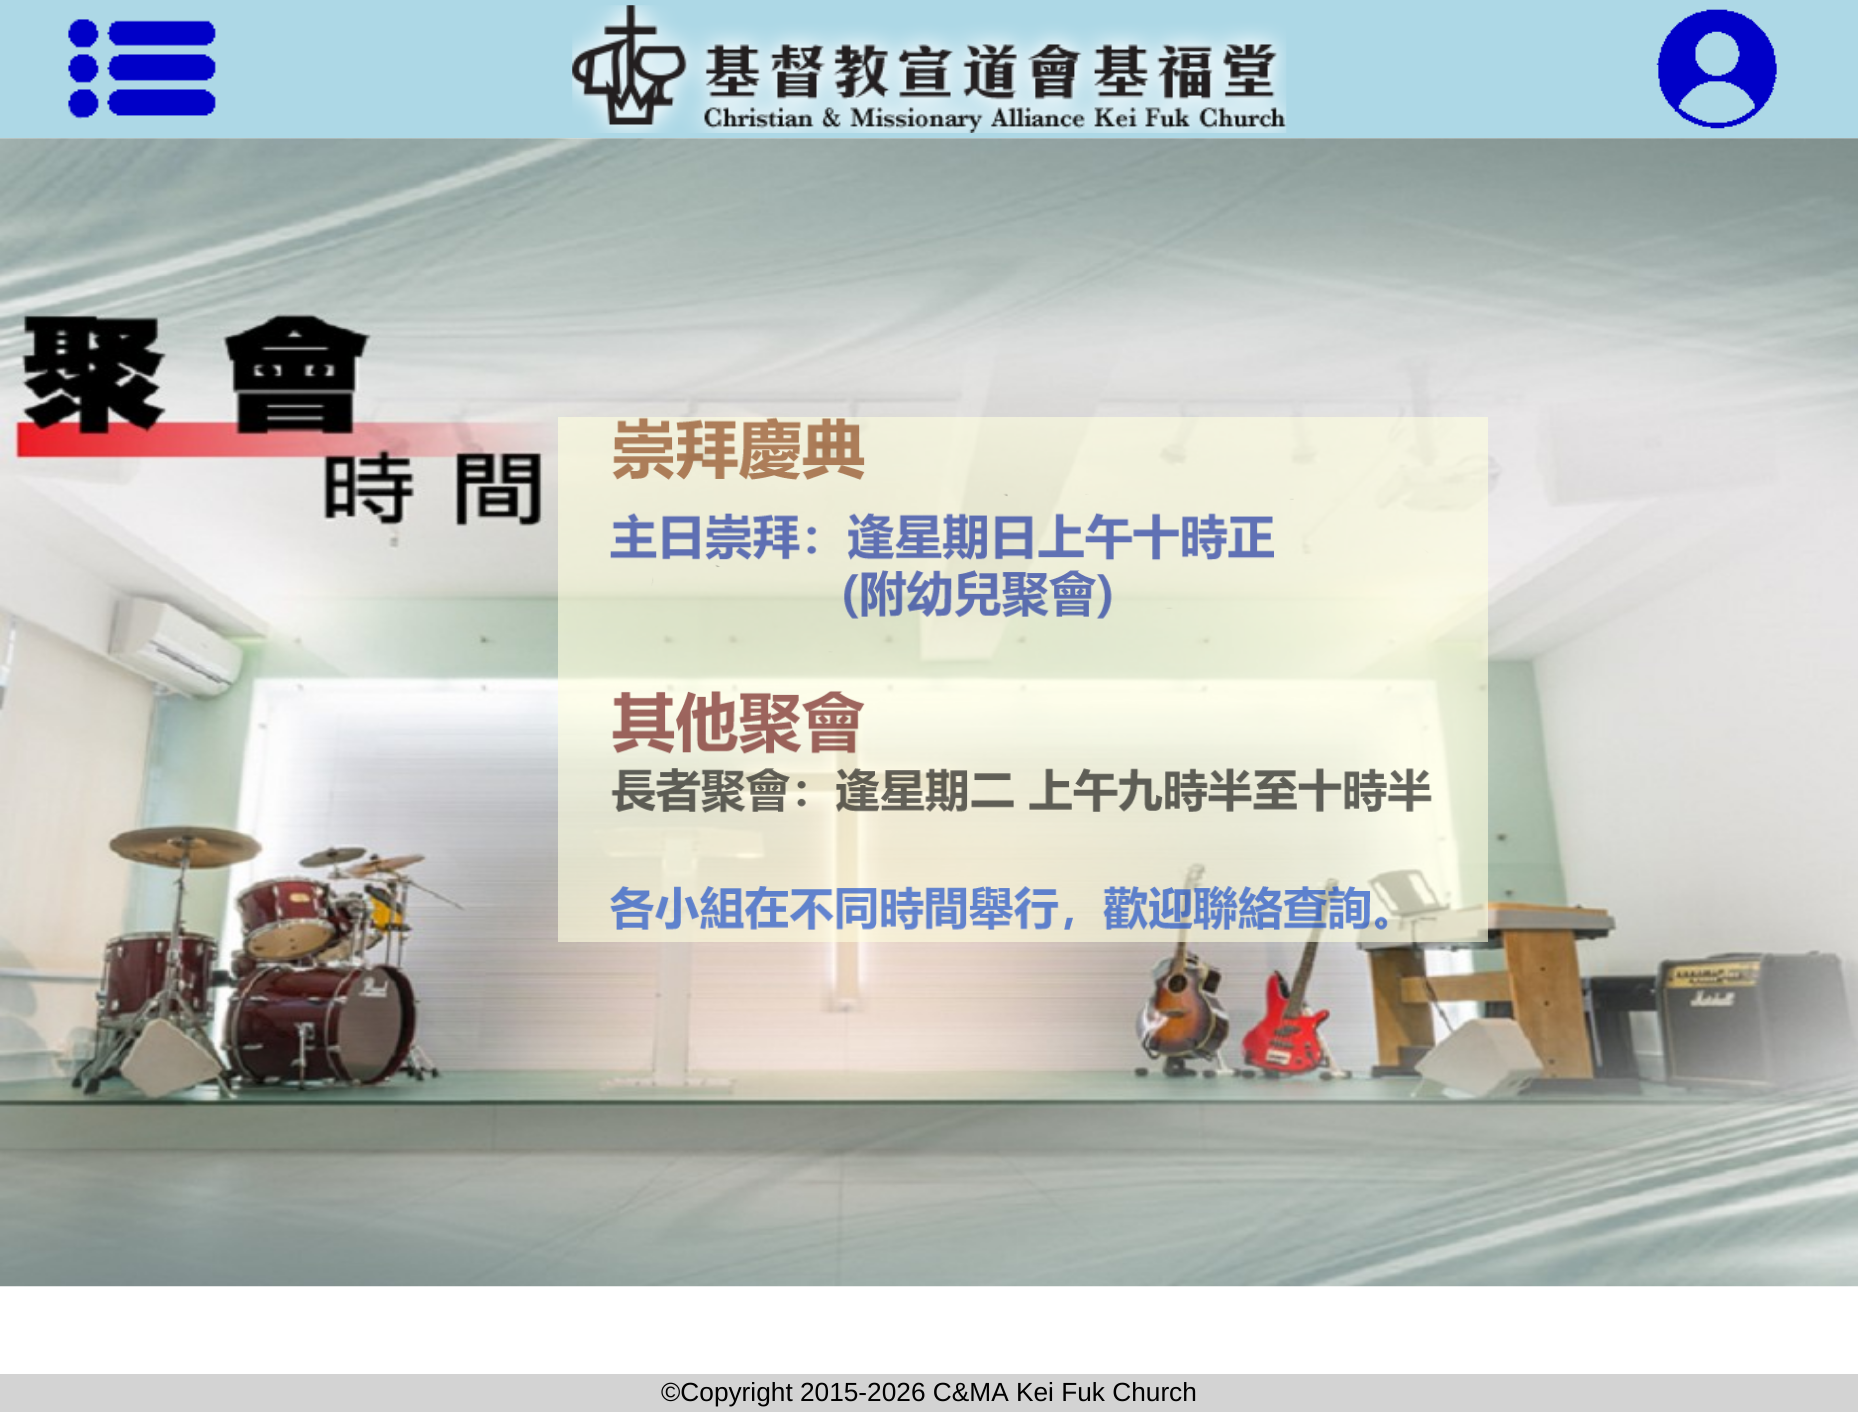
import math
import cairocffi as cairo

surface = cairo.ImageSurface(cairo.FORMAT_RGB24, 1858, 1412)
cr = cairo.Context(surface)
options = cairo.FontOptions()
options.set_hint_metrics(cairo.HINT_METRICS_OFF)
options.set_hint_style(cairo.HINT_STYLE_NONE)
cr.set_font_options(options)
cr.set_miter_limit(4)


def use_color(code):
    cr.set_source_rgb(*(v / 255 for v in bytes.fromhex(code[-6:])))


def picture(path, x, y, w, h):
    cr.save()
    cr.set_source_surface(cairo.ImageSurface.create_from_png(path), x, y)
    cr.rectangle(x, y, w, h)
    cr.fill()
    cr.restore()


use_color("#ffffff")
cr.paint()
use_color("#add8e6")
cr.rectangle(0, 0, 1858, 138)
cr.fill()
picture("img1.png", 68, 19, 148, 100)
picture("img2.png", 572, 5, 715, 128)
picture("img3.png", 1656, 9, 121, 120)
picture("img4.png", 0, 138, 1858, 1149)
cr.set_source_rgba(1, 1, 0.878, 0.6)
cr.rectangle(558, 417, 930, 525)
cr.fill()
picture("img5.png", 610, 417, 822, 513)
use_color("#d3d3d3")
cr.rectangle(0, 1374, 1858, 38)
cr.fill()
cr.select_font_face("Liberation Sans")
cr.set_font_size(26.25)
use_color("#000000")
cr.move_to(661, 1401)
cr.show_text("©Copyright 2015-2026 C&MA Kei Fuk Church")
surface.write_to_png("result.png")
